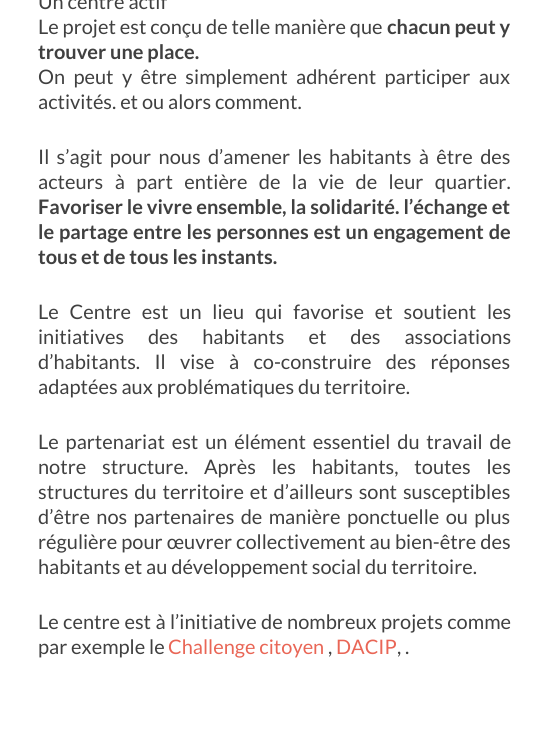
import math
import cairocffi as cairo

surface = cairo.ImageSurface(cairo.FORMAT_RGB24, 547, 749)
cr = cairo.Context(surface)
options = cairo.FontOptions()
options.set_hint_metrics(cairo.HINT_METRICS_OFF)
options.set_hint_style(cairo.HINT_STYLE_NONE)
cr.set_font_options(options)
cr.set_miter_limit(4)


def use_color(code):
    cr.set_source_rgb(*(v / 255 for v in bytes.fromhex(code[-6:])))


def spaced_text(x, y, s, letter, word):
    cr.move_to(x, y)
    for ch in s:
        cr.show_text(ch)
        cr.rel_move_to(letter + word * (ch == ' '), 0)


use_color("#ffffff")
cr.paint()
cr.select_font_face("Lato")
cr.set_font_size(20)
use_color("#404040")
cr.move_to(38, 9)
cr.show_text("Un centre actif")
cr.move_to(38, 34)
cr.show_text("Le projet est conçu de telle manière que")
cr.select_font_face("Lato", cairo.FONT_SLANT_NORMAL, cairo.FONT_WEIGHT_BOLD)
cr.move_to(387, 34)
cr.show_text("chacun peut y")
cr.move_to(38, 59)
cr.show_text("trouver une place.")
cr.select_font_face("Lato")
spaced_text(38, 84, "On peut y être simplement adhérent participer aux", 0, 4.5)
cr.move_to(38, 109)
cr.show_text("activités. et ou alors comment.")
spaced_text(38, 164, "Il s’agit pour nous d’amener les habitants à être des", 0, 3.5)
spaced_text(38, 189, "acteurs à part entière de la vie de leur quartier.", 0, 7.5)
cr.select_font_face("Lato", cairo.FONT_SLANT_NORMAL, cairo.FONT_WEIGHT_BOLD)
cr.move_to(38, 214)
cr.show_text("Favoriser le vivre ensemble, la solidarité. l’échange et")
spaced_text(38, 239, "le partage entre les personnes est un engagement de", 0, 1)
cr.move_to(38, 264)
cr.show_text("tous et de tous les instants.")
cr.select_font_face("Lato")
spaced_text(38, 319, "Le Centre est un lieu qui favorise et soutient les", 0, 7)
spaced_text(38, 344, "initiatives des habitants et des associations", 0, 20)
spaced_text(38, 369, "d’habitants. Il vise à co-construire des réponses", 0, 10.5)
cr.move_to(38, 394)
cr.show_text("adaptées aux problématiques du territoire.")
spaced_text(38, 449, "Le partenariat est un élément essentiel du travail de", 0, 3)
spaced_text(38, 474, "notre structure. Après les habitants, toutes les", 0, 12)
spaced_text(38, 499, "structures du territoire et d’ailleurs sont susceptibles", 0, 2)
spaced_text(38, 524, "d’être nos partenaires de manière ponctuelle ou plus", 0, 2.5)
spaced_text(38, 549, "régulière pour œuvrer collectivement au bien-être des", 0, 0.25)
cr.move_to(38, 574)
cr.show_text("habitants et au développement social du territoire.")
spaced_text(38, 629, "Le centre est à l’initiative de nombreux projets comme", 0, 0.5)
cr.move_to(38, 654)
cr.show_text("par exemple le")
use_color("#e96656")
cr.move_to(168, 654)
cr.show_text("Challenge citoyen")
use_color("#404040")
cr.move_to(328, 654)
cr.show_text(",")
use_color("#e96656")
cr.move_to(336, 654)
cr.show_text("DACIP")
use_color("#404040")
cr.move_to(397, 654)
cr.show_text(", .")
surface.write_to_png("result.png")
